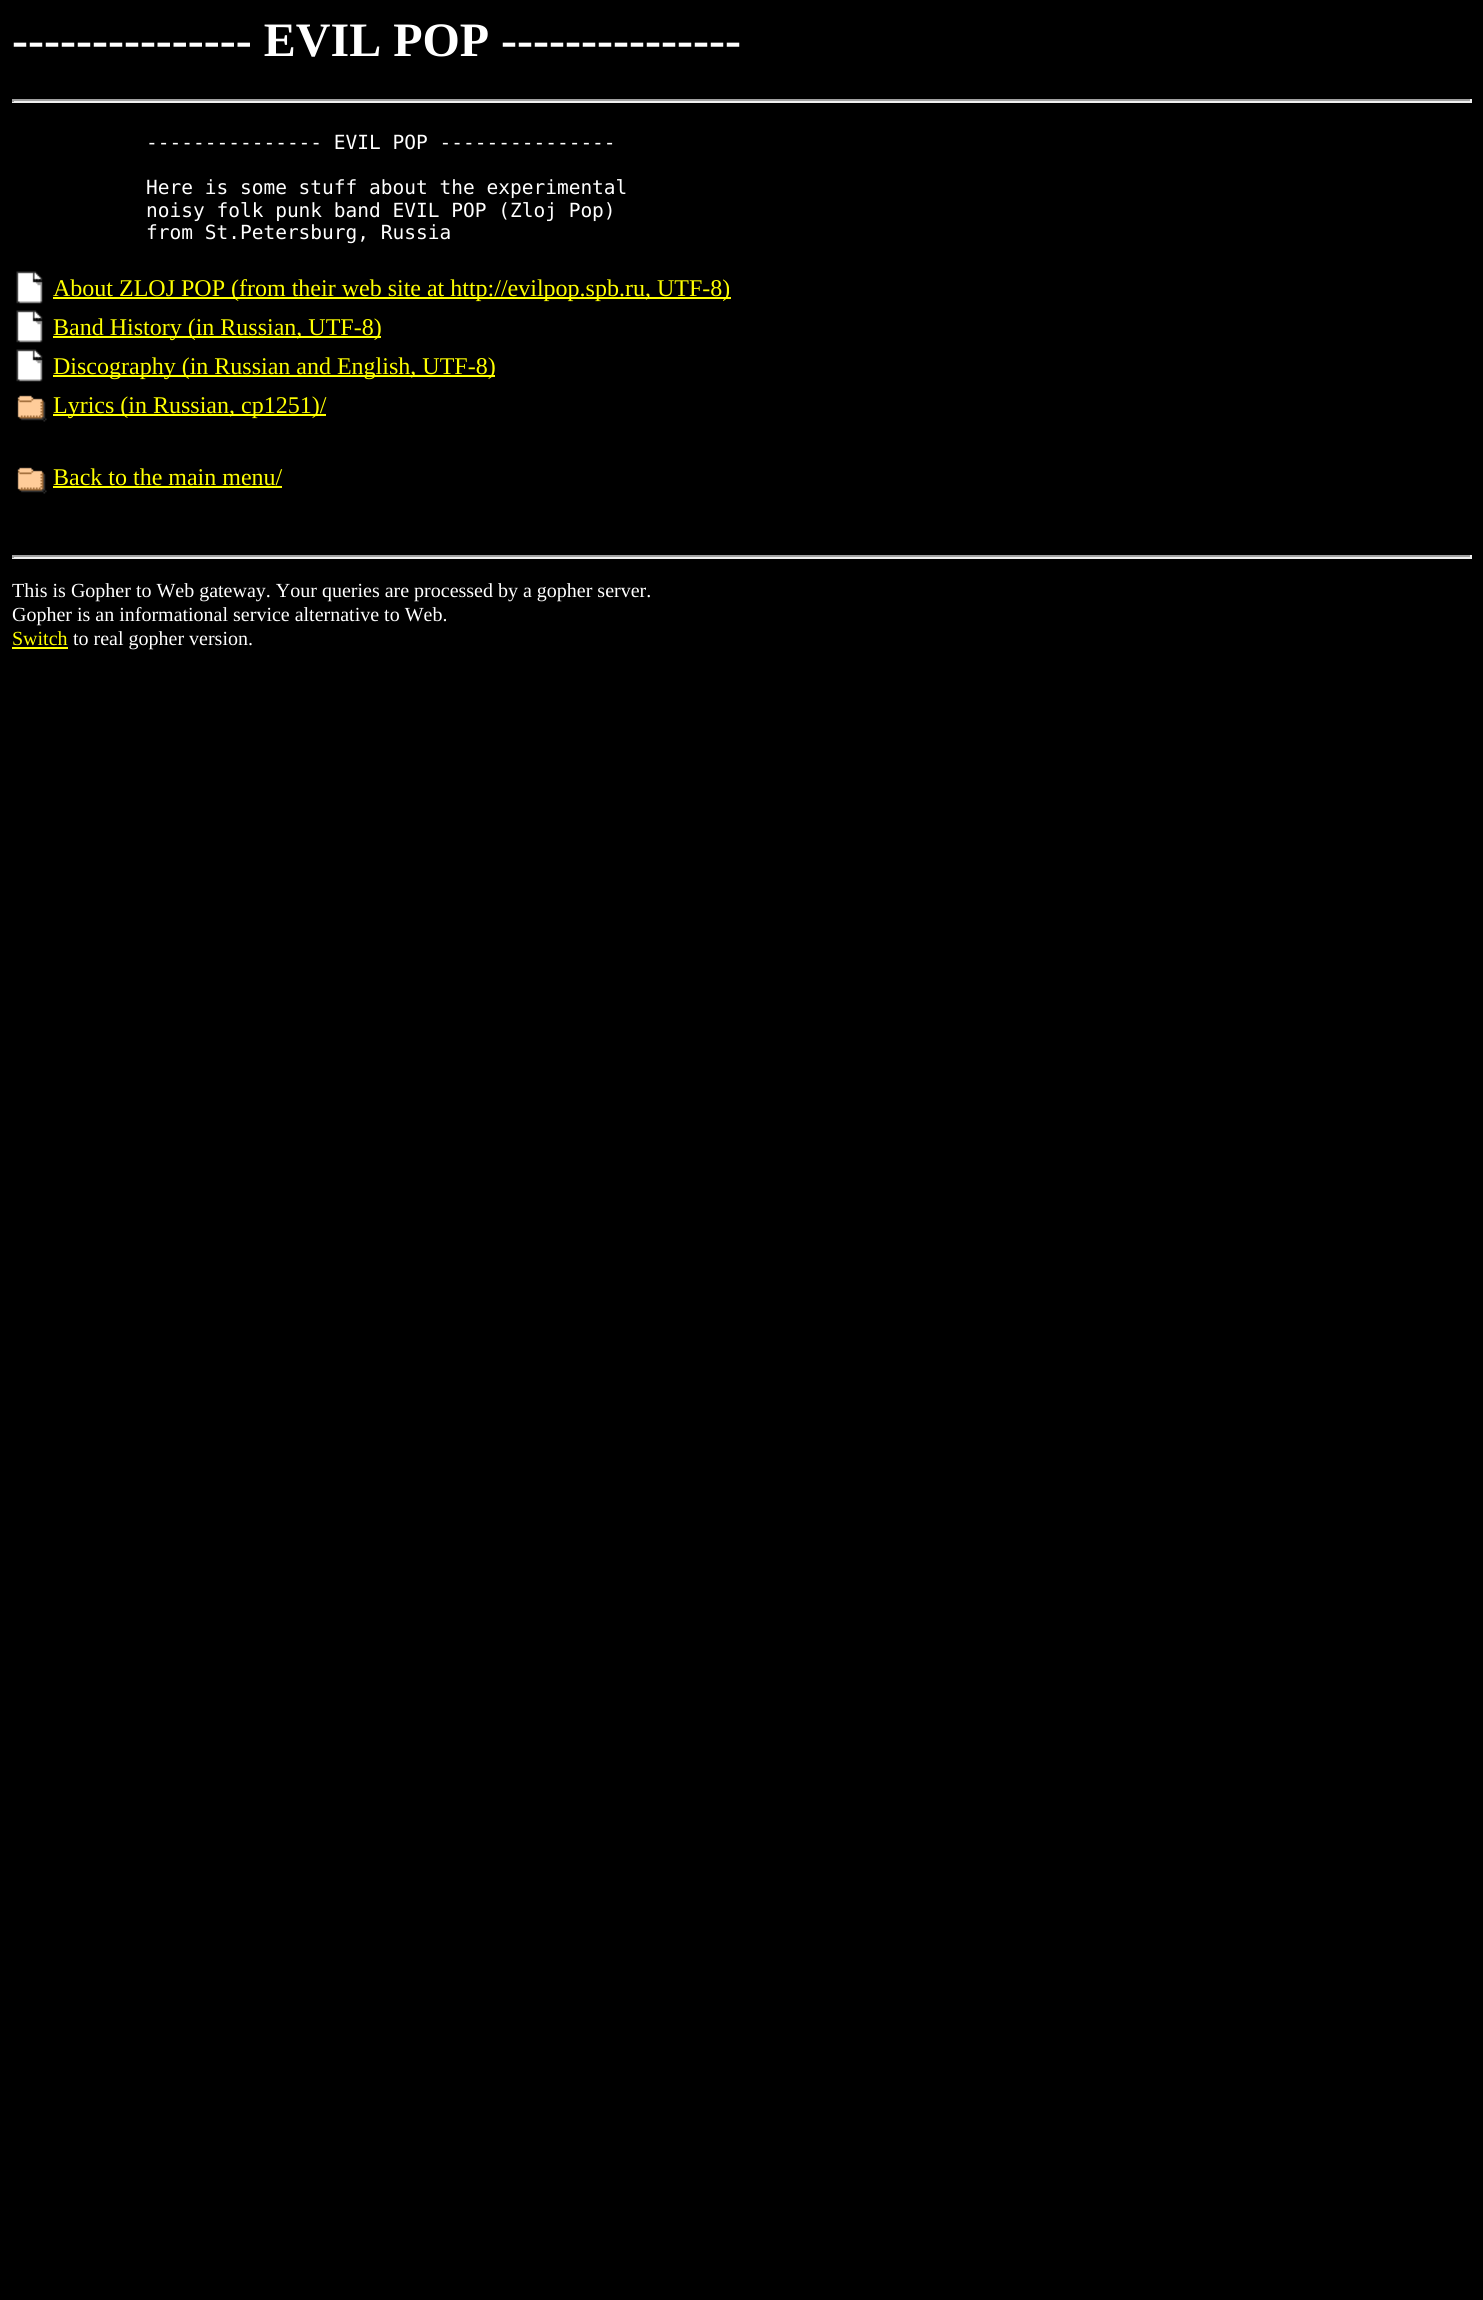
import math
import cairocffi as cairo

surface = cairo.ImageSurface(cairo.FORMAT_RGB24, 1483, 2300)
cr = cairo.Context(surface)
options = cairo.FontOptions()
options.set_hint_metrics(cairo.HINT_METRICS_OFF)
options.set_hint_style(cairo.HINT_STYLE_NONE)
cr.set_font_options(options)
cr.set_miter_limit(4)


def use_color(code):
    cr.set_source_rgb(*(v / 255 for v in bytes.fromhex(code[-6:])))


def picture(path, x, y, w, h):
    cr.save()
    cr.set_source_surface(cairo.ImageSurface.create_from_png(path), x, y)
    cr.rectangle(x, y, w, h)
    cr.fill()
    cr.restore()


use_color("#000000")
cr.paint()
cr.select_font_face("Liberation Serif", cairo.FONT_SLANT_NORMAL, cairo.FONT_WEIGHT_BOLD)
cr.set_font_size(48)
use_color("#ffffff")
cr.move_to(12, 56)
cr.show_text("--------------- EVIL POP ---------------")
use_color("#9f9f9f")
cr.rectangle(12, 99, 1460, 2)
cr.fill()
use_color("#eeeeee")
cr.rectangle(1470, 99, 2, 3)
cr.fill()
cr.rectangle(12, 101, 1460, 2)
cr.fill()
use_color("#9f9f9f")
cr.rectangle(12, 99, 2, 3)
cr.fill()
cr.select_font_face("DejaVu Sans Mono")
cr.set_font_size(19.5)
use_color("#ffffff")
cr.move_to(146, 149)
cr.show_text("--------------- EVIL POP ---------------")
cr.move_to(146, 194)
cr.show_text("Here is some stuff about the experimental")
cr.move_to(146, 217)
cr.show_text("noisy folk punk band EVIL POP (Zloj Pop)")
cr.move_to(146, 239)
cr.show_text("from St.Petersburg, Russia")
picture("img1.png", 16, 271, 27, 33)
use_color("#ffff00")
cr.rectangle(53, 297, 678, 2)
cr.fill()
cr.select_font_face("Liberation Serif")
cr.set_font_size(24)
cr.move_to(53, 296)
cr.show_text("About ZLOJ POP (from their web site at http://evilpop.spb.ru, UTF-8)")
picture("img1.png", 16, 310, 27, 33)
cr.rectangle(53, 336, 328, 2)
cr.fill()
cr.move_to(53, 335)
cr.show_text("Band History (in Russian, UTF-8)")
picture("img1.png", 16, 349, 27, 33)
cr.rectangle(53, 375, 442, 2)
cr.fill()
cr.move_to(53, 374)
cr.show_text("Discography (in Russian and English, UTF-8)")
picture("img2.png", 17, 395, 30, 27)
cr.rectangle(53, 414, 273, 2)
cr.fill()
cr.move_to(53, 413)
cr.show_text("Lyrics (in Russian, cp1251)/")
picture("img2.png", 17, 467, 30, 27)
cr.move_to(53, 485)
cr.show_text("Back to the main menu/")
cr.rectangle(53, 486, 229, 2)
cr.fill()
use_color("#9f9f9f")
cr.rectangle(12, 555, 1460, 2)
cr.fill()
use_color("#eeeeee")
cr.rectangle(1470, 555, 2, 3)
cr.fill()
cr.rectangle(12, 557, 1460, 2)
cr.fill()
use_color("#9f9f9f")
cr.rectangle(12, 555, 2, 3)
cr.fill()
cr.set_font_size(20)
use_color("#ffffff")
cr.move_to(12, 597)
cr.show_text("This is Gopher to Web gateway. Your queries are processed by a gopher server.")
cr.move_to(12, 621)
cr.show_text("Gopher is an informational service alternative to Web.")
use_color("#ffff00")
cr.move_to(12, 645)
cr.show_text("Switch")
cr.rectangle(12, 647, 56, 2)
cr.fill()
use_color("#ffffff")
cr.move_to(73, 645)
cr.show_text("to real gopher version.")
surface.write_to_png("result.png")
